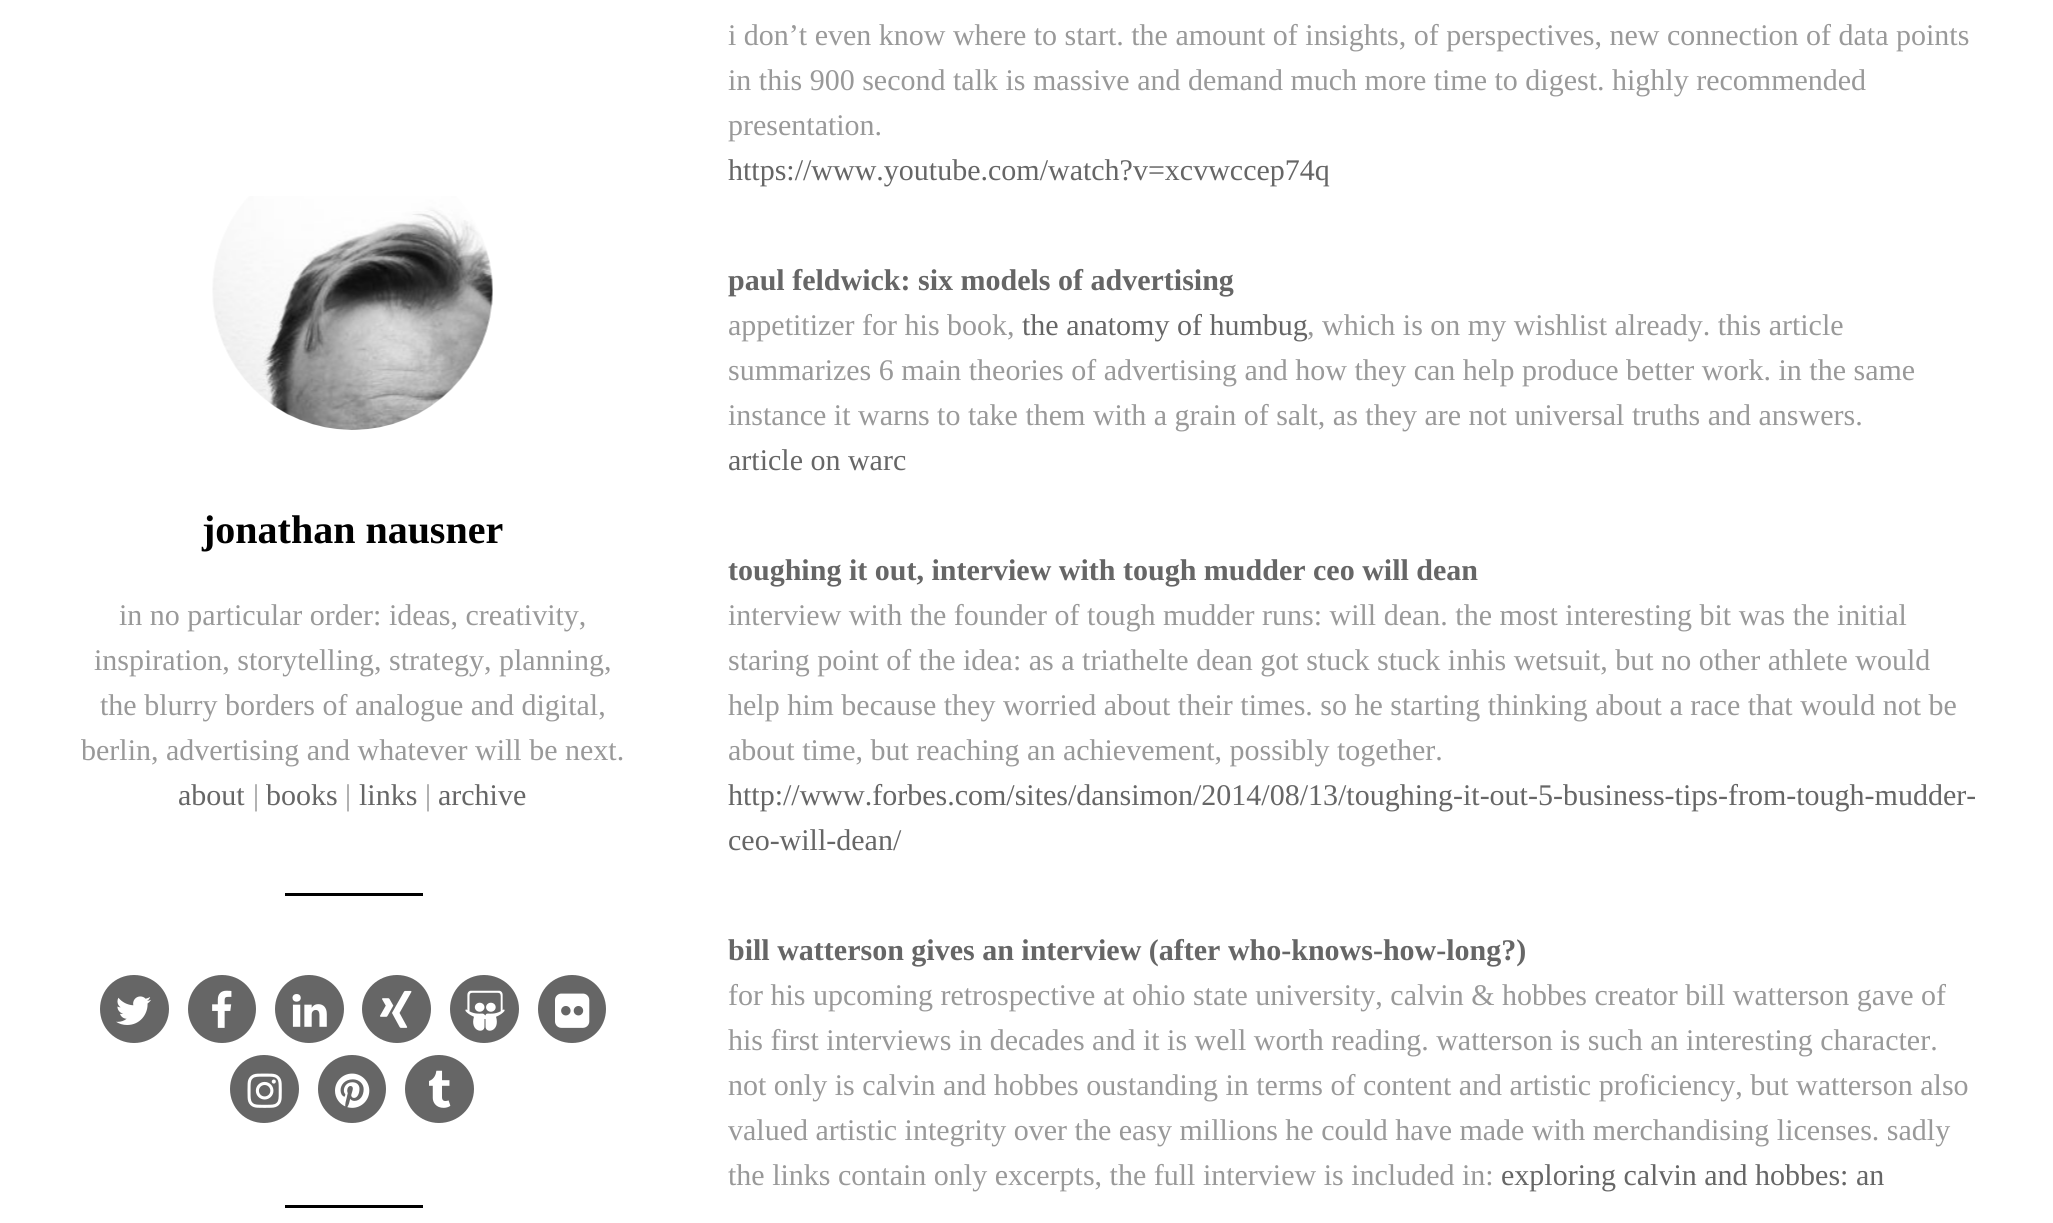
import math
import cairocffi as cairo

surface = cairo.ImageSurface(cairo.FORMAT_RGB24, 2053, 1223)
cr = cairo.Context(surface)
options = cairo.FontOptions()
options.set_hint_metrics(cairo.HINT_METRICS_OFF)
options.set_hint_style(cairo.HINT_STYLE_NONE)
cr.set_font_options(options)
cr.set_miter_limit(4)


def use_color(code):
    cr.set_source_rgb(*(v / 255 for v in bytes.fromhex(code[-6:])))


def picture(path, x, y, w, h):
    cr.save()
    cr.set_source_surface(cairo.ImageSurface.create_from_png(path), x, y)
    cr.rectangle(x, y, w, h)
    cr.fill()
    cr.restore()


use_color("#ffffff")
cr.paint()
picture("img1.png", 212, 196, 281, 234)
cr.select_font_face("Liberation Serif", cairo.FONT_SLANT_NORMAL, cairo.FONT_WEIGHT_BOLD)
cr.set_font_size(40)
use_color("#000000")
cr.move_to(202, 543)
cr.show_text("jonathan nausner")
cr.select_font_face("Liberation Serif")
cr.set_font_size(30)
use_color("#999999")
cr.move_to(119, 625)
cr.show_text("in no particular order: ideas, creativity,")
cr.move_to(94, 670)
cr.show_text("inspiration, storytelling, strategy, planning,")
cr.move_to(100, 715)
cr.show_text("the blurry borders of analogue and digital,")
cr.move_to(81, 760)
cr.show_text("berlin, advertising and whatever will be next.")
use_color("#666666")
cr.move_to(178, 805)
cr.show_text("about")
use_color("#999999")
cr.move_to(253, 805)
cr.show_text("|")
use_color("#666666")
cr.move_to(266, 805)
cr.show_text("books")
use_color("#999999")
cr.move_to(345, 805)
cr.show_text("|")
use_color("#666666")
cr.move_to(359, 805)
cr.show_text("links")
use_color("#999999")
cr.move_to(425, 805)
cr.show_text("|")
use_color("#666666")
cr.move_to(438, 805)
cr.show_text("archive")
use_color("#000000")
cr.rectangle(285, 893, 138, 3)
cr.fill()
use_color("#666666")
cr.new_path()
cr.move_to(169, 1009)
cr.curve_to(169, 990, 153, 975, 134, 975)
cr.curve_to(115, 975, 100, 990, 100, 1009)
cr.curve_to(100, 1028, 115, 1043, 134, 1043)
cr.curve_to(153, 1043, 169, 1028, 169, 1009)
cr.close_path()
cr.fill()
picture("img2.png", 116, 996, 35, 29)
cr.new_path()
cr.move_to(256, 1009)
cr.curve_to(256, 990, 241, 975, 222, 975)
cr.curve_to(203, 975, 188, 990, 188, 1009)
cr.curve_to(188, 1028, 203, 1043, 222, 1043)
cr.curve_to(241, 1043, 256, 1028, 256, 1009)
cr.close_path()
cr.fill()
picture("img3.png", 212, 990, 20, 38)
cr.new_path()
cr.move_to(344, 1009)
cr.curve_to(344, 990, 328, 975, 309, 975)
cr.curve_to(290, 975, 275, 990, 275, 1009)
cr.curve_to(275, 1028, 290, 1043, 309, 1043)
cr.curve_to(328, 1043, 344, 1028, 344, 1009)
cr.close_path()
cr.fill()
picture("img4.png", 292, 994, 35, 33)
cr.new_path()
cr.move_to(431, 1009)
cr.curve_to(431, 990, 416, 975, 397, 975)
cr.curve_to(378, 975, 362, 990, 362, 1009)
cr.curve_to(362, 1028, 378, 1043, 397, 1043)
cr.curve_to(416, 1043, 431, 1028, 431, 1009)
cr.close_path()
cr.fill()
picture("img5.png", 380, 990, 32, 38)
cr.new_path()
cr.move_to(519, 1009)
cr.curve_to(519, 990, 503, 975, 484, 975)
cr.curve_to(465, 975, 450, 990, 450, 1009)
cr.curve_to(450, 1028, 465, 1043, 484, 1043)
cr.curve_to(503, 1043, 519, 1028, 519, 1009)
cr.close_path()
cr.fill()
picture("img6.png", 465, 990, 40, 41)
cr.new_path()
cr.move_to(606, 1009)
cr.curve_to(606, 990, 591, 975, 572, 975)
cr.curve_to(553, 975, 538, 990, 538, 1009)
cr.curve_to(538, 1028, 553, 1043, 572, 1043)
cr.curve_to(591, 1043, 606, 1028, 606, 1009)
cr.close_path()
cr.fill()
picture("img7.png", 555, 993, 35, 35)
cr.new_path()
cr.move_to(299, 1089)
cr.curve_to(299, 1070, 283, 1055, 264, 1055)
cr.curve_to(245, 1055, 230, 1070, 230, 1089)
cr.curve_to(230, 1108, 245, 1123, 264, 1123)
cr.curve_to(283, 1123, 299, 1108, 299, 1089)
cr.close_path()
cr.fill()
picture("img8.png", 247, 1073, 35, 35)
cr.new_path()
cr.move_to(386, 1089)
cr.curve_to(386, 1070, 371, 1055, 352, 1055)
cr.curve_to(333, 1055, 318, 1070, 318, 1089)
cr.curve_to(318, 1108, 333, 1123, 352, 1123)
cr.curve_to(371, 1123, 386, 1108, 386, 1089)
cr.close_path()
cr.fill()
picture("img9.png", 335, 1073, 35, 35)
cr.new_path()
cr.move_to(474, 1089)
cr.curve_to(474, 1070, 458, 1055, 439, 1055)
cr.curve_to(420, 1055, 405, 1070, 405, 1089)
cr.curve_to(405, 1108, 420, 1123, 439, 1123)
cr.curve_to(458, 1123, 474, 1108, 474, 1089)
cr.close_path()
cr.fill()
picture("img10.png", 429, 1070, 22, 38)
use_color("#000000")
cr.rectangle(285, 1205, 138, 3)
cr.fill()
use_color("#999999")
cr.move_to(728, 45)
cr.show_text("i don’t even know where to start. the amount of insights, of perspectives, new connection of data points")
cr.move_to(728, 90)
cr.show_text("in this 900 second talk is massive and demand much more time to digest. highly recommended")
cr.move_to(728, 135)
cr.show_text("presentation.")
use_color("#666666")
cr.move_to(728, 180)
cr.show_text("https://www.youtube.com/watch?v=xcvwccep74q")
cr.select_font_face("Liberation Serif", cairo.FONT_SLANT_NORMAL, cairo.FONT_WEIGHT_BOLD)
cr.move_to(728, 290)
cr.show_text("paul feldwick: six models of advertising")
cr.select_font_face("Liberation Serif")
use_color("#999999")
cr.move_to(728, 335)
cr.show_text("appetitizer for his book,")
use_color("#666666")
cr.move_to(1022, 335)
cr.show_text("the anatomy of humbug")
use_color("#999999")
cr.move_to(1307, 335)
cr.show_text(", which is on my wishlist already. this article")
cr.move_to(728, 380)
cr.show_text("summarizes 6 main theories of advertising and how they can help produce better work. in the same")
cr.move_to(728, 425)
cr.show_text("instance it warns to take them with a grain of salt, as they are not universal truths and answers.")
use_color("#666666")
cr.move_to(728, 470)
cr.show_text("article on warc")
cr.select_font_face("Liberation Serif", cairo.FONT_SLANT_NORMAL, cairo.FONT_WEIGHT_BOLD)
cr.move_to(728, 580)
cr.show_text("toughing it out, interview with tough mudder ceo will dean")
cr.select_font_face("Liberation Serif")
use_color("#999999")
cr.move_to(728, 625)
cr.show_text("interview with the founder of tough mudder runs: will dean. the most interesting bit was the initial")
cr.move_to(728, 670)
cr.show_text("staring point of the idea: as a triathelte dean got stuck stuck inhis wetsuit, but no other athlete would")
cr.move_to(728, 715)
cr.show_text("help him because they worried about their times. so he starting thinking about a race that would not be")
cr.move_to(728, 760)
cr.show_text("about time, but reaching an achievement, possibly together.")
use_color("#666666")
cr.move_to(728, 805)
cr.show_text("http://www.forbes.com/sites/dansimon/2014/08/13/toughing-it-out-5-business-tips-from-tough-mudder-")
cr.move_to(728, 850)
cr.show_text("ceo-will-dean/")
cr.select_font_face("Liberation Serif", cairo.FONT_SLANT_NORMAL, cairo.FONT_WEIGHT_BOLD)
cr.move_to(728, 960)
cr.show_text("bill watterson gives an interview (after who-knows-how-long?)")
cr.select_font_face("Liberation Serif")
use_color("#999999")
cr.move_to(728, 1005)
cr.show_text("for his upcoming retrospective at ohio state university, calvin & hobbes creator bill watterson gave of")
cr.move_to(728, 1050)
cr.show_text("his first interviews in decades and it is well worth reading. watterson is such an interesting character.")
cr.move_to(728, 1095)
cr.show_text("not only is calvin and hobbes oustanding in terms of content and artistic proficiency, but watterson also")
cr.move_to(728, 1140)
cr.show_text("valued artistic integrity over the easy millions he could have made with merchandising licenses. sadly")
cr.move_to(728, 1185)
cr.show_text("the links contain only excerpts, the full interview is included in:")
use_color("#666666")
cr.move_to(1501, 1185)
cr.show_text("exploring calvin and hobbes: an")
surface.write_to_png("result.png")
